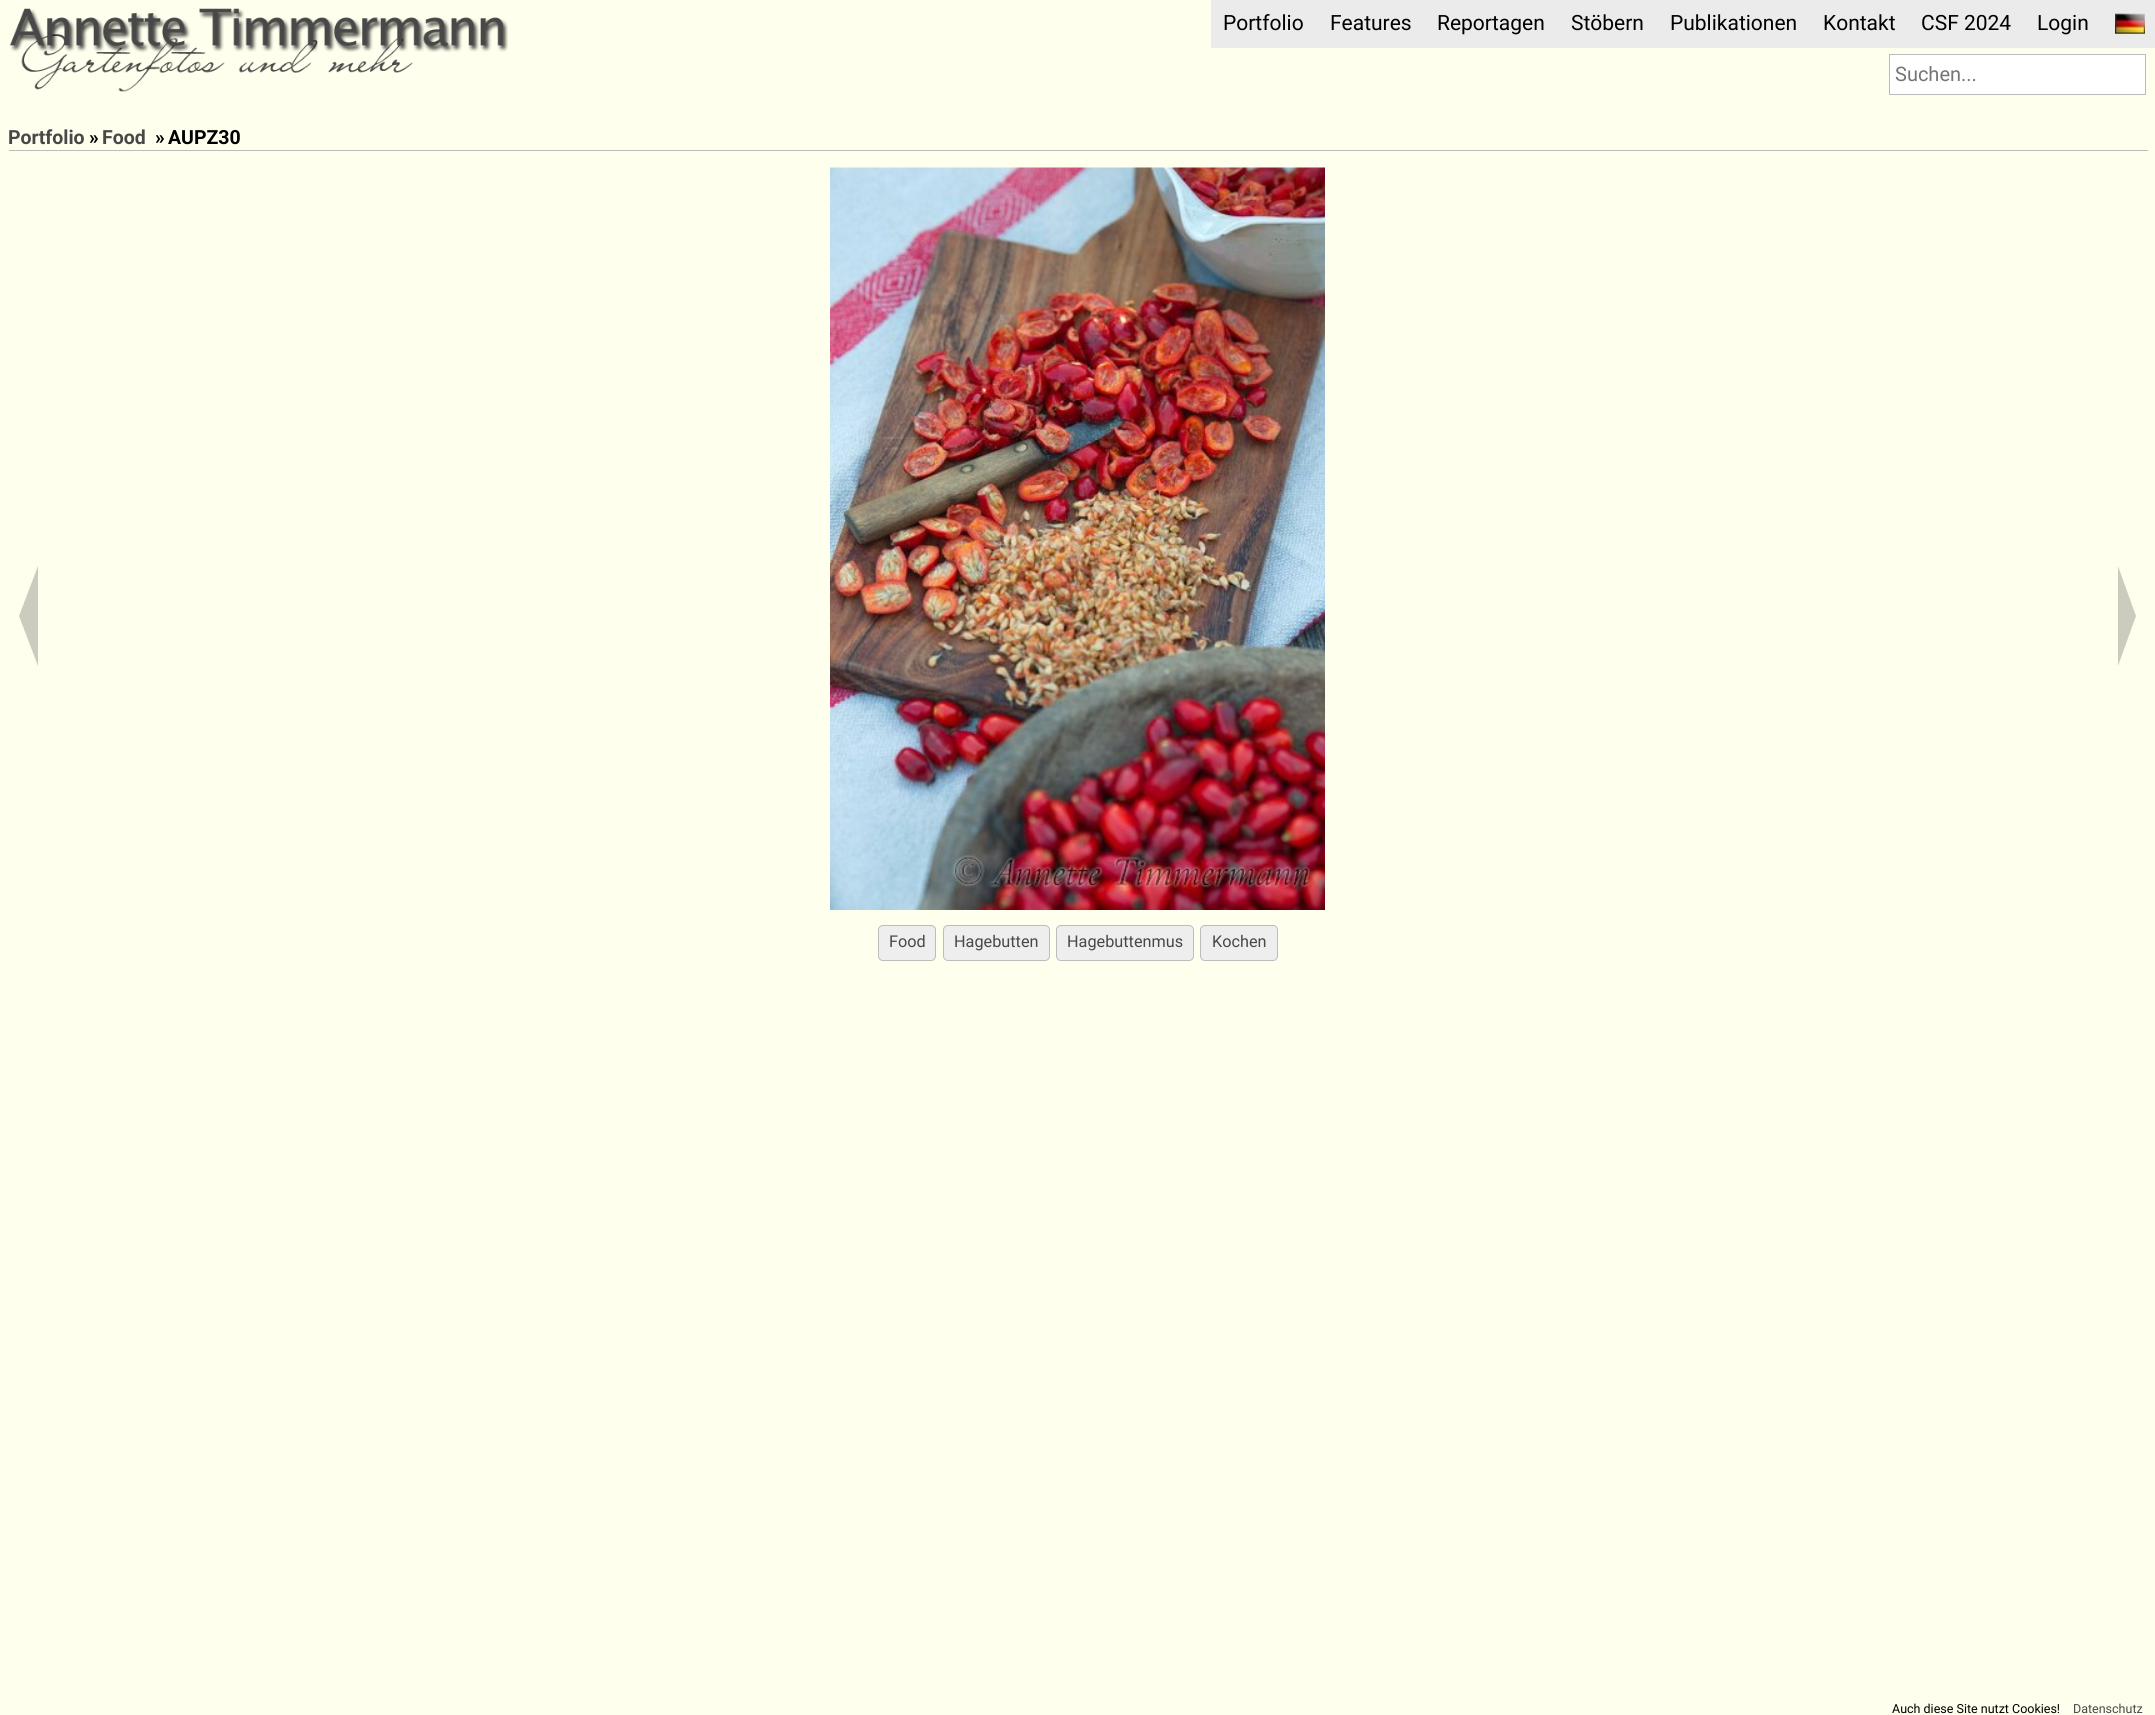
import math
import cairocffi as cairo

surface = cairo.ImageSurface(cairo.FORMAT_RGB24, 2155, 1715)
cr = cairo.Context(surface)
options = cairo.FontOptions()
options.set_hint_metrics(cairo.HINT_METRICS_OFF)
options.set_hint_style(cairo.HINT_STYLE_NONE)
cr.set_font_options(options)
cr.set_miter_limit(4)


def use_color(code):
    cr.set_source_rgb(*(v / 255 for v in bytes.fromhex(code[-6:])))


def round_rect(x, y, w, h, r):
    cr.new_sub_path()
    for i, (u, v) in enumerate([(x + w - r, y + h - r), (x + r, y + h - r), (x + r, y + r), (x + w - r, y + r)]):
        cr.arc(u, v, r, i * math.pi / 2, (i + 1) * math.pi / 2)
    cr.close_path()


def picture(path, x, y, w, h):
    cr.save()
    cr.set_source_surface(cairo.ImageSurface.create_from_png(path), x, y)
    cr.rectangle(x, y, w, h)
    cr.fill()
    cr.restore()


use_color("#ffffee")
cr.paint()
picture("img1.png", 9, 8, 499, 84)
use_color("#ecebeb")
cr.rectangle(1211, 0, 944, 48)
cr.fill()
cr.select_font_face("Roboto")
cr.set_font_size(21)
use_color("#000000")
cr.move_to(1223, 30)
cr.show_text("Portfolio")
cr.move_to(1330, 30)
cr.show_text("Features")
cr.move_to(1437, 30)
cr.show_text("Reportagen")
cr.move_to(1571, 30)
cr.show_text("Stöbern")
cr.move_to(1670, 30)
cr.show_text("Publikationen")
cr.move_to(1823, 30)
cr.show_text("Kontakt")
cr.move_to(1921, 30)
cr.show_text("CSF 2024")
cr.move_to(2037, 30)
cr.show_text("Login")
picture("img2.png", 2115, 13, 30, 21)
cr.rectangle(1889.5, 54.5, 256, 40)
use_color("#bcbcbc")
cr.set_line_width(1)
cr.stroke()
use_color("#ffffff")
cr.rectangle(1890, 55, 255, 39)
cr.fill()
cr.set_font_size(20)
use_color("#757575")
cr.move_to(1895, 81)
cr.show_text("Suchen...")
use_color("#bcbcbc")
cr.rectangle(9, 150, 2139, 1)
cr.fill()
cr.select_font_face("Roboto", cairo.FONT_SLANT_NORMAL, cairo.FONT_WEIGHT_BOLD)
cr.set_font_size(19.5)
use_color("#484848")
cr.move_to(8, 144)
cr.show_text("Portfolio")
use_color("#000000")
cr.move_to(89, 144)
cr.show_text("»")
use_color("#484848")
cr.move_to(102, 144)
cr.show_text("Food")
use_color("#000000")
cr.move_to(155, 144)
cr.show_text("»")
cr.move_to(168, 144)
cr.show_text("AUPZ30")
use_color("#ccccbe")
cr.new_path()
cr.move_to(38, 566)
cr.line_to(38, 666)
cr.line_to(19, 616)
cr.close_path()
cr.fill()
picture("img3.png", 830, 167, 495, 743)
cr.new_path()
cr.move_to(2118, 666)
cr.line_to(2118, 566)
cr.line_to(2136, 616)
cr.close_path()
cr.fill()
use_color("#eeeeee")
round_rect(878.5, 925.5, 57, 35, 4.5)
cr.fill_preserve()
use_color("#bcbcbc")
cr.stroke()
cr.select_font_face("Roboto")
cr.set_font_size(16.25)
use_color("#484848")
cr.move_to(889, 947)
cr.show_text("Food")
use_color("#eeeeee")
round_rect(943.5, 925.5, 106, 35, 4.5)
cr.fill_preserve()
use_color("#bcbcbc")
cr.stroke()
use_color("#484848")
cr.move_to(954, 947)
cr.show_text("Hagebutten")
use_color("#eeeeee")
round_rect(1056.5, 925.5, 137, 35, 4.5)
cr.fill_preserve()
use_color("#bcbcbc")
cr.stroke()
use_color("#484848")
cr.move_to(1067, 947)
cr.show_text("Hagebuttenmus")
use_color("#eeeeee")
round_rect(1200.5, 925.5, 77, 35, 4.5)
cr.fill_preserve()
use_color("#bcbcbc")
cr.stroke()
use_color("#484848")
cr.move_to(1212, 947)
cr.show_text("Kochen")
cr.set_font_size(12.5)
use_color("#000000")
cr.move_to(1892, 1713)
cr.show_text("Auch diese Site nutzt Cookies!")
use_color("#484848")
cr.move_to(2073, 1713)
cr.show_text("Datenschutz")
surface.write_to_png("result.png")
